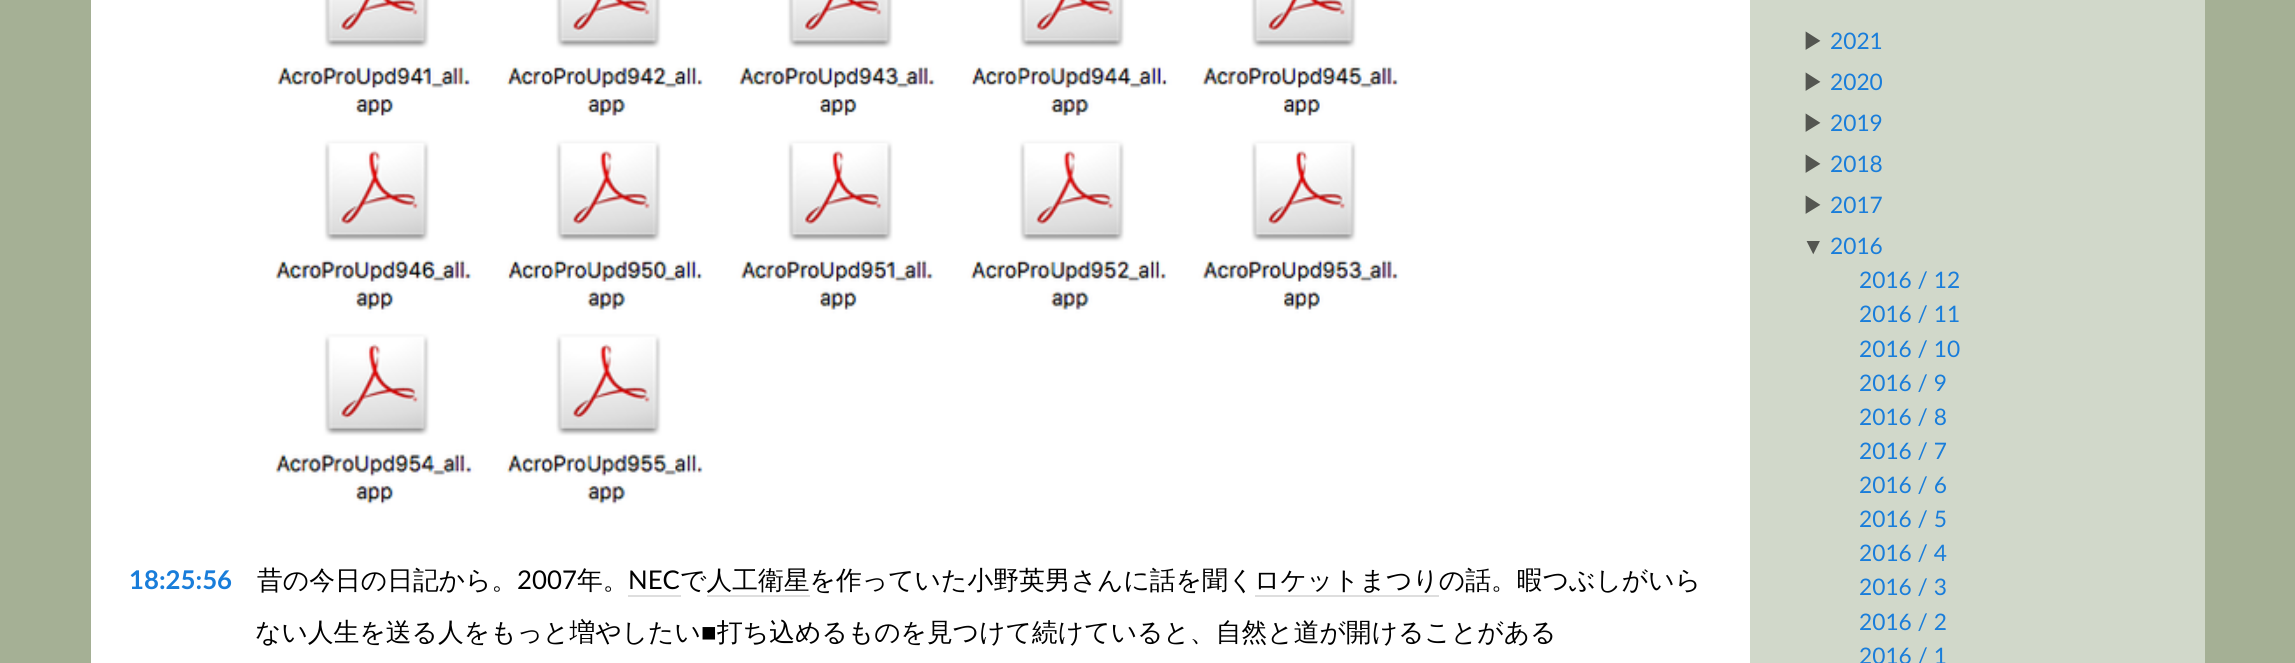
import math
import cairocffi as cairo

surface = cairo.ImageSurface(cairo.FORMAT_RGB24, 2295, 663)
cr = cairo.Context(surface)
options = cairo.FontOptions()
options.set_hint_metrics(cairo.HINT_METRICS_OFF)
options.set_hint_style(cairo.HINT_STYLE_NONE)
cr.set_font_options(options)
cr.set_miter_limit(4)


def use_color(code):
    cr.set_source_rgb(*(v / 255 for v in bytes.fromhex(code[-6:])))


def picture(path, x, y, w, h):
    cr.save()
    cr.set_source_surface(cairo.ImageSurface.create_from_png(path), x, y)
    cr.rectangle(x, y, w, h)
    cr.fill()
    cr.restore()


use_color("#a5b095")
cr.paint()
use_color("#d1d8ca")
cr.rectangle(1750, 0, 455, 663)
cr.fill()
use_color("#ffffff")
cr.rectangle(91, 0, 1659, 663)
cr.fill()
picture("img1.png", 274, 0, 1125, 505)
cr.select_font_face("Lato", cairo.FONT_SLANT_NORMAL, cairo.FONT_WEIGHT_BOLD)
cr.set_font_size(25.8)
use_color("#197dda")
cr.move_to(129, 589)
cr.show_text("18:25:56")
cr.select_font_face("WenQuanYi Zen Hei Medium")
use_color("#000000")
cr.move_to(257, 589)
cr.show_text("昔の今日の日記から。")
cr.select_font_face("Lato")
cr.move_to(517, 589)
cr.show_text("2007")
cr.select_font_face("WenQuanYi Zen Hei Medium")
cr.move_to(577, 589)
cr.show_text("年。")
cr.select_font_face("Lato")
cr.move_to(628, 589)
cr.show_text("NEC")
use_color("#dedede")
cr.rectangle(628, 595, 53, 2)
cr.fill()
cr.select_font_face("WenQuanYi Zen Hei Medium")
use_color("#000000")
cr.move_to(680, 589)
cr.show_text("で人工衛星を作っていた小野英男さんに話を聞く")
cr.move_to(1254, 589)
cr.show_text("ロケットまつりの話。暇つぶしがいら")
use_color("#dedede")
cr.rectangle(1255, 595, 184, 2)
cr.fill()
cr.rectangle(707, 595, 103, 2)
cr.fill()
use_color("#000000")
cr.move_to(255, 641)
cr.show_text("ない人生を送る人をもっと増やしたい")
cr.select_font_face("Liberation Sans")
cr.move_to(701, 641)
cr.show_text("■")
cr.select_font_face("WenQuanYi Zen Hei Medium")
cr.move_to(717, 641)
cr.show_text("打ち込めるものを見つけて続けていると、自然と道が開けることがある")
cr.set_font_size(22.75)
use_color("#545651")
cr.move_to(1802, 49)
cr.show_text("▶")
cr.select_font_face("Lato")
use_color("#197dda")
cr.move_to(1830, 49)
cr.show_text("2021")
cr.select_font_face("WenQuanYi Zen Hei Medium")
use_color("#545651")
cr.move_to(1802, 90)
cr.show_text("▶")
cr.select_font_face("Lato")
use_color("#197dda")
cr.move_to(1830, 90)
cr.show_text("2020")
cr.select_font_face("WenQuanYi Zen Hei Medium")
use_color("#545651")
cr.move_to(1802, 131)
cr.show_text("▶")
cr.select_font_face("Lato")
use_color("#197dda")
cr.move_to(1830, 131)
cr.show_text("2019")
cr.select_font_face("WenQuanYi Zen Hei Medium")
use_color("#545651")
cr.move_to(1802, 172)
cr.show_text("▶")
cr.select_font_face("Lato")
use_color("#197dda")
cr.move_to(1830, 172)
cr.show_text("2018")
cr.select_font_face("WenQuanYi Zen Hei Medium")
use_color("#545651")
cr.move_to(1802, 213)
cr.show_text("▶")
cr.select_font_face("Lato")
use_color("#197dda")
cr.move_to(1830, 213)
cr.show_text("2017")
cr.select_font_face("Liberation Sans")
use_color("#545651")
cr.move_to(1802, 254)
cr.show_text("▼")
cr.select_font_face("Lato")
use_color("#197dda")
cr.move_to(1830, 254)
cr.show_text("2016")
cr.move_to(1859, 288)
cr.show_text("2016 / 12")
cr.move_to(1859, 322)
cr.show_text("2016 / 11")
cr.move_to(1859, 357)
cr.show_text("2016 / 10")
cr.move_to(1859, 391)
cr.show_text("2016 / 9")
cr.move_to(1859, 425)
cr.show_text("2016 / 8")
cr.move_to(1859, 459)
cr.show_text("2016 / 7")
cr.move_to(1859, 493)
cr.show_text("2016 / 6")
cr.move_to(1859, 527)
cr.show_text("2016 / 5")
cr.move_to(1859, 561)
cr.show_text("2016 / 4")
cr.move_to(1859, 595)
cr.show_text("2016 / 3")
cr.move_to(1859, 630)
cr.show_text("2016 / 2")
cr.move_to(1859, 664)
cr.show_text("2016 / 1")
surface.write_to_png("result.png")
